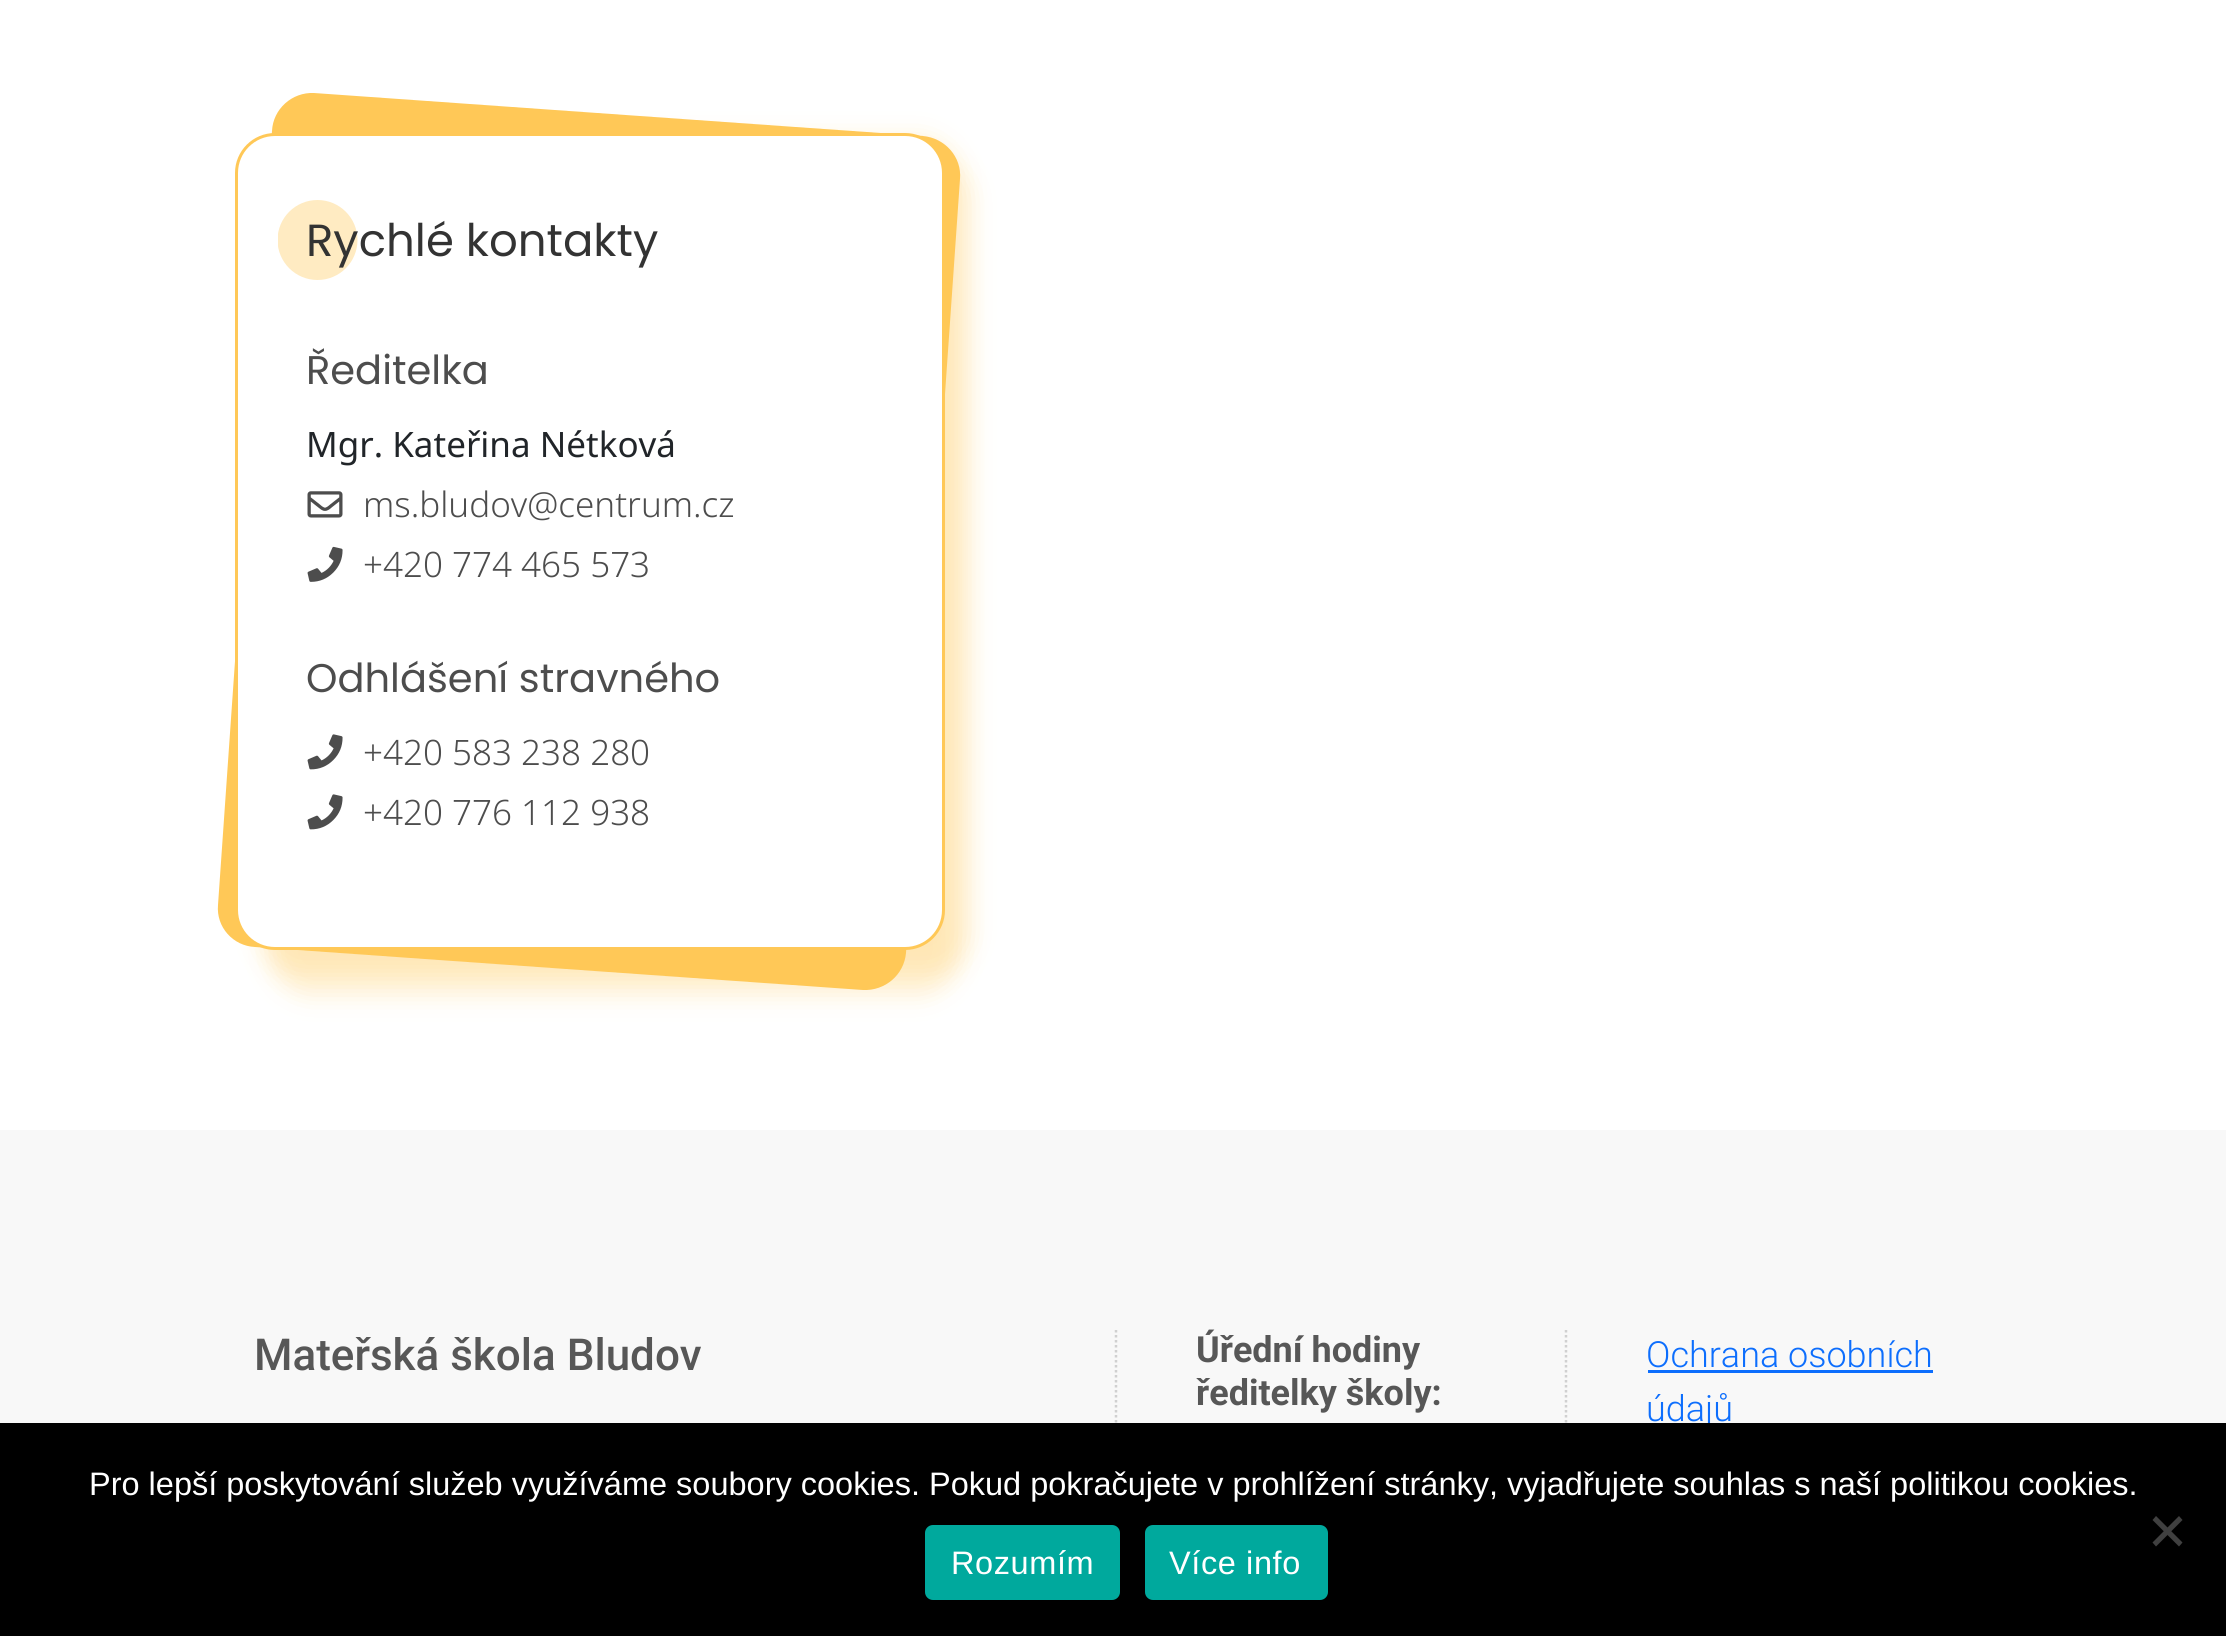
import math
import cairocffi as cairo

surface = cairo.ImageSurface(cairo.FORMAT_RGB24, 2226, 1636)
cr = cairo.Context(surface)
options = cairo.FontOptions()
options.set_hint_metrics(cairo.HINT_METRICS_OFF)
options.set_hint_style(cairo.HINT_STYLE_NONE)
cr.set_font_options(options)
cr.set_miter_limit(4)


def use_color(code):
    cr.set_source_rgb(*(v / 255 for v in bytes.fromhex(code[-6:])))


def spaced_text(x, y, s, letter, word):
    cr.move_to(x, y)
    for ch in s:
        cr.show_text(ch)
        cr.rel_move_to(letter + word * (ch == ' '), 0)


def round_rect(x, y, w, h, r):
    cr.new_sub_path()
    for i, (u, v) in enumerate([(x + w - r, y + h - r), (x + r, y + h - r), (x + r, y + r), (x + w - r, y + r)]):
        cr.arc(u, v, r, i * math.pi / 2, (i + 1) * math.pi / 2)
    cr.close_path()


def shadow(x, y, w, h, r, blur, alpha):
    cr.push_group_with_content(cairo.CONTENT_ALPHA)
    cr.set_operator(cairo.OPERATOR_SOURCE)
    for i in range(15, -16, -2):
        e = blur * i / 6
        if min(w, h) + 2 * e > 0:
            cr.set_source_rgba(0, 0, 0, alpha * math.erfc((i - 1) / 8.5) / 2)
            round_rect(x - e, y - e, w + 2 * e, h + 2 * e, max(0, min(r + e + blur * .6, min(w, h) / 2 + e)))
            cr.fill()
    cr.mask(cr.pop_group())


def picture(path, x, y, w, h):
    cr.save()
    cr.set_source_surface(cairo.ImageSurface.create_from_png(path), x, y)
    cr.rectangle(x, y, w, h)
    cr.fill()
    cr.restore()


use_color("#ffffff")
cr.paint()
use_color("#ffc857")
shadow(270, 138, 690, 857, 40, 12.5, 0.25)
use_color("#ffc857")
cr.new_path()
cr.move_to(314, 93)
cr.line_to(923, 136)
cr.curve_to(945, 138, 962, 157, 960, 179)
cr.line_to(906, 953)
cr.curve_to(904, 975, 885, 991, 863, 990)
cr.line_to(255, 947)
cr.curve_to(233, 946, 216, 927, 218, 905)
cr.line_to(272, 131)
cr.curve_to(273, 109, 292, 92, 314, 93)
cr.close_path()
cr.fill()
use_color("#ffc857")
shadow(260, 158, 710, 817, 40, 12.5, 0.25)
use_color("#ffffff")
round_rect(236.5, 134.5, 707, 814, 38.5)
cr.fill_preserve()
use_color("#ffc857")
cr.set_line_width(3)
cr.stroke()
cr.save()
cr.rectangle(278, 200, 80, 80)
cr.clip()
use_color("#ffebc2")
cr.arc(317.5, 240, 40, 0, 2 * math.pi)
cr.fill()
cr.restore()
cr.select_font_face("Poppins")
cr.set_font_size(45)
use_color("#333333")
cr.move_to(306, 256)
cr.show_text("Rychlé kontakty")
cr.set_font_size(40)
use_color("#4d4d4d")
cr.move_to(306, 384)
cr.show_text("Ředitelka")
cr.select_font_face("Noto Sans")
cr.set_font_size(35)
use_color("#212529")
cr.move_to(306, 457)
cr.show_text("Mgr. Kateřina Nétková")
picture("img1.png", 307, 491, 36, 27)
cr.select_font_face("Noto Sans Light")
use_color("#4d4d4d")
cr.move_to(363, 517)
cr.show_text("ms.bludov@centrum.cz")
picture("img2.png", 307, 546, 36, 36)
cr.move_to(363, 577)
cr.show_text("+420 774 465 573")
cr.select_font_face("Poppins")
cr.set_font_size(40)
cr.move_to(306, 692)
cr.show_text("Odhlášení stravného")
picture("img3.png", 307, 734, 36, 36)
cr.select_font_face("Noto Sans Light")
cr.set_font_size(35)
cr.move_to(363, 765)
cr.show_text("+420 583 238 280")
picture("img3.png", 307, 794, 36, 36)
cr.move_to(363, 825)
cr.show_text("+420 776 112 938")
use_color("#f8f8f8")
cr.rectangle(0, 1130, 2226, 293)
cr.fill()
cr.select_font_face("Roboto Medium")
cr.set_font_size(44)
use_color("#575757")
cr.move_to(254, 1370)
cr.show_text("Mateřská škola Bludov")
cr.new_path()
cr.move_to(1116, 1330)
cr.line_to(1116, 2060)
use_color("#d0d0d0")
cr.set_line_width(2.5)
cr.set_dash([2.5, 2.5])
cr.stroke()
cr.select_font_face("Roboto", cairo.FONT_SLANT_NORMAL, cairo.FONT_WEIGHT_BOLD)
cr.set_font_size(36)
use_color("#575757")
cr.move_to(1196, 1362)
cr.show_text("Úřední hodiny")
cr.move_to(1196, 1405)
cr.show_text("ředitelky školy:")
cr.new_path()
cr.move_to(1566, 1330)
cr.line_to(1566, 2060)
use_color("#d0d0d0")
cr.stroke()
cr.select_font_face("Roboto Light")
use_color("#0d6efd")
cr.move_to(1646, 1367)
cr.show_text("Ochrana osobních")
cr.rectangle(1648, 1370, 285, 3)
cr.fill()
cr.move_to(1646, 1421)
cr.show_text("údajů")
use_color("#000000")
cr.rectangle(0, 1423, 2226, 213)
cr.fill()
cr.select_font_face("Liberation Sans")
cr.set_font_size(32.5)
use_color("#ffffff")
cr.move_to(89, 1495)
cr.show_text("Pro lepší poskytování služeb využíváme soubory cookies. Pokud pokračujete v prohlížení stránky, vyjadřujete souhlas s naší politikou cookies.")
use_color("#404040")
cr.new_path()
cr.move_to(2179, 1516)
cr.line_to(2182.5, 1520)
cr.line_to(2156, 1546.5)
cr.line_to(2152.5, 1542.5)
cr.close_path()
cr.fill()
cr.new_path()
cr.move_to(2152.5, 1520)
cr.line_to(2156, 1516)
cr.line_to(2182.5, 1542.5)
cr.line_to(2179, 1546.5)
cr.close_path()
cr.fill()
use_color("#00a99d")
round_rect(925, 1525, 195, 75, 8)
cr.fill()
use_color("#ffffff")
spaced_text(951, 1574, "Rozumím", 0.6, 0)
use_color("#00a99d")
round_rect(1145, 1525, 183, 75, 8)
cr.fill()
use_color("#ffffff")
spaced_text(1169, 1574, "Více info", 0.6, 0)
surface.write_to_png("result.png")
